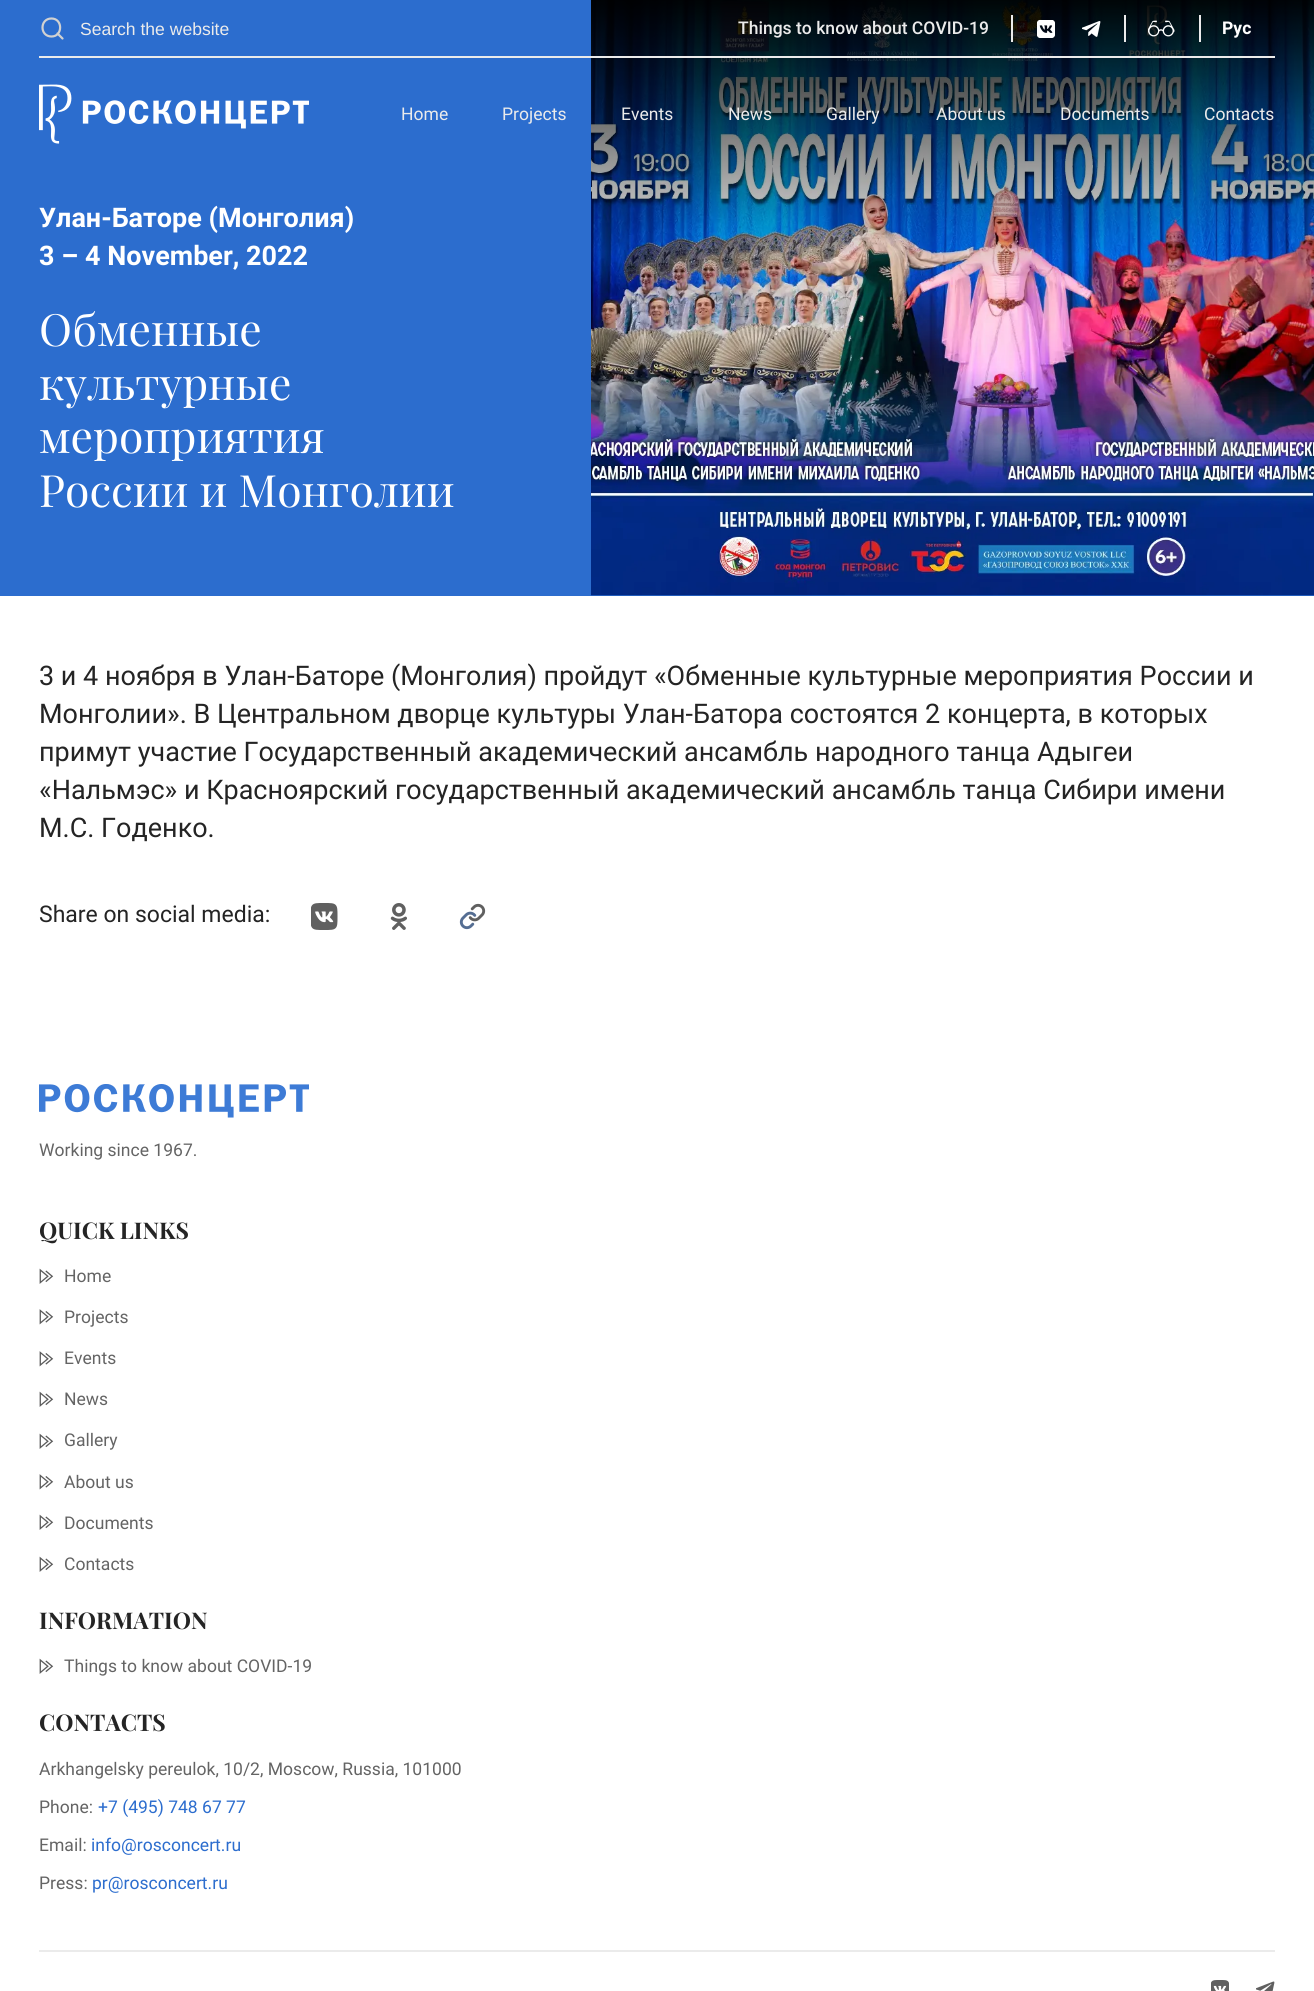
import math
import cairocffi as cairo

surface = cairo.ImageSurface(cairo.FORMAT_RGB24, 1314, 1991)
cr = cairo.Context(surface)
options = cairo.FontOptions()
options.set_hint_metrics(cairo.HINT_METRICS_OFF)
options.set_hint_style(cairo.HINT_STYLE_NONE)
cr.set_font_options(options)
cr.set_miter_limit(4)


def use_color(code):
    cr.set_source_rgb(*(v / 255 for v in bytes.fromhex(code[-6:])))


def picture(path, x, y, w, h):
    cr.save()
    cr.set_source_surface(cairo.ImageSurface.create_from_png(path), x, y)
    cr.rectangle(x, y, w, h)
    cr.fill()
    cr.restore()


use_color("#ffffff")
cr.paint()
use_color("#2c6dce")
cr.rectangle(0, 0, 1314, 596)
cr.fill()
cr.new_path()
cr.move_to(51.5, 36.5)
cr.curve_to(63, 36.5, 63, 18.5, 51.5, 18.5)
cr.curve_to(39.5, 18.5, 39.5, 36.5, 51.5, 36.5)
cr.close_path()
cr.move_to(62.5, 38.5)
cr.line_to(57.5, 33.5)
use_color("#d1d1d1")
cr.set_line_width(2.2)
cr.set_line_cap(cairo.LINE_CAP_ROUND)
cr.set_line_join(cairo.LINE_JOIN_ROUND)
cr.stroke()
cr.select_font_face("Liberation Sans")
cr.set_font_size(17.55)
use_color("#ebebeb")
cr.move_to(80, 35)
cr.show_text("Search the website")
picture("img5.png", 591, 0, 723, 596)
cr.select_font_face("Roboto Medium")
cr.move_to(738, 34)
cr.show_text("Things to know about COVID-19")
cr.rectangle(1011, 15, 2, 27)
cr.fill()
picture("img1.png", 1037, 20, 18, 18)
picture("img2.png", 1082, 21, 19, 16)
cr.rectangle(1124, 15, 2, 27)
cr.fill()
picture("img3.png", 1148, 20, 27, 17)
cr.rectangle(1199, 15, 2, 27)
cr.fill()
cr.select_font_face("Roboto", cairo.FONT_SLANT_NORMAL, cairo.FONT_WEIGHT_BOLD)
use_color("#ffffff")
cr.move_to(1222, 34)
cr.show_text("Рус")
use_color("#ebebeb")
cr.rectangle(39, 56, 1236, 2)
cr.fill()
picture("img4.png", 39, 84, 270, 60)
cr.select_font_face("Roboto")
cr.move_to(401, 120)
cr.show_text("Home")
cr.move_to(502, 120)
cr.show_text("Projects")
cr.move_to(621, 120)
cr.show_text("Events")
cr.move_to(728, 120)
cr.show_text("News")
cr.move_to(826, 120)
cr.show_text("Gallery")
cr.move_to(936, 120)
cr.show_text("About us")
cr.move_to(1060, 120)
cr.show_text("Documents")
cr.move_to(1204, 120)
cr.show_text("Contacts")
cr.select_font_face("Roboto", cairo.FONT_SLANT_NORMAL, cairo.FONT_WEIGHT_BOLD)
cr.set_font_size(27)
use_color("#ffffff")
cr.move_to(39, 227)
cr.show_text("Улан-Баторе (Монголия)")
cr.move_to(39, 265)
cr.show_text("3 – 4 November, 2022")
cr.select_font_face("Playfair Display")
cr.set_font_size(44.5)
cr.move_to(39, 346)
cr.show_text("Обменные")
cr.move_to(39, 400)
cr.show_text("культурные")
cr.move_to(39, 453)
cr.show_text("мероприятия")
cr.move_to(39, 507)
cr.show_text("России и Монголии")
cr.select_font_face("Roboto")
cr.set_font_size(27)
use_color("#242424")
cr.move_to(39, 685)
cr.show_text("3 и 4 ноября в Улан-Баторе (Монголия) пройдут «Обменные культурные мероприятия России и")
cr.move_to(39, 723)
cr.show_text("Монголии». В Центральном дворце культуры Улан-Батора состоятся 2 концерта, в которых")
cr.move_to(39, 761)
cr.show_text("примут участие Государственный академический ансамбль народного танца Адыгеи")
cr.move_to(39, 799)
cr.show_text("«Нальмэс» и Красноярский государственный академический ансамбль танца Сибири имени")
cr.move_to(39, 837)
cr.show_text("М.С. Годенко.")
cr.set_font_size(23)
cr.move_to(39, 922)
cr.show_text("Share on social media:")
picture("img6.png", 311, 903, 27, 27)
picture("img7.png", 390, 903, 17, 27)
picture("img8.png", 459, 903, 27, 27)
picture("img9.png", 39, 1084, 270, 34)
cr.set_font_size(17.55)
use_color("#646464")
cr.move_to(39, 1156)
cr.show_text("Working since 1967.")
cr.select_font_face("Playfair Display", cairo.FONT_SLANT_NORMAL, cairo.FONT_WEIGHT_BOLD)
cr.set_font_size(23)
use_color("#242424")
cr.move_to(39, 1239)
cr.show_text("QUICK LINKS")
picture("img10.png", 39, 1268, 15, 16)
cr.select_font_face("Roboto")
cr.set_font_size(17.55)
use_color("#646464")
cr.move_to(64, 1282)
cr.show_text("Home")
picture("img11.png", 39, 1309, 15, 16)
cr.move_to(64, 1323)
cr.show_text("Projects")
picture("img11.png", 39, 1351, 15, 16)
cr.move_to(64, 1364)
cr.show_text("Events")
picture("img10.png", 39, 1391, 15, 16)
cr.move_to(64, 1405)
cr.show_text("News")
picture("img10.png", 39, 1433, 15, 16)
cr.move_to(64, 1446)
cr.show_text("Gallery")
picture("img11.png", 39, 1474, 15, 16)
cr.move_to(64, 1488)
cr.show_text("About us")
picture("img10.png", 39, 1514, 15, 16)
cr.move_to(64, 1529)
cr.show_text("Documents")
picture("img10.png", 39, 1556, 15, 16)
cr.move_to(64, 1570)
cr.show_text("Contacts")
cr.select_font_face("Playfair Display", cairo.FONT_SLANT_NORMAL, cairo.FONT_WEIGHT_BOLD)
cr.set_font_size(23)
use_color("#242424")
cr.move_to(39, 1629)
cr.show_text("INFORMATION")
picture("img10.png", 39, 1658, 15, 16)
cr.select_font_face("Roboto")
cr.set_font_size(17.55)
use_color("#646464")
cr.move_to(64, 1672)
cr.show_text("Things to know about COVID-19")
cr.select_font_face("Playfair Display", cairo.FONT_SLANT_NORMAL, cairo.FONT_WEIGHT_BOLD)
cr.set_font_size(23)
use_color("#242424")
cr.move_to(39, 1731)
cr.show_text("CONTACTS")
cr.select_font_face("Roboto")
cr.set_font_size(17.55)
use_color("#646464")
cr.move_to(39, 1775)
cr.show_text("Arkhangelsky pereulok, 10/2, Moscow, Russia, 101000")
cr.move_to(39, 1813)
cr.show_text("Phone:")
use_color("#2c6dce")
cr.move_to(98, 1813)
cr.show_text("+7 (495) 748 67 77")
use_color("#646464")
cr.move_to(39, 1851)
cr.show_text("Email:")
use_color("#2c6dce")
cr.move_to(91, 1851)
cr.show_text("info@rosconcert.ru")
use_color("#646464")
cr.move_to(39, 1889)
cr.show_text("Press:")
use_color("#2c6dce")
cr.move_to(92, 1889)
cr.show_text("pr@rosconcert.ru")
use_color("#ebebeb")
cr.rectangle(39, 1950, 1236, 2)
cr.fill()
picture("img12.png", 1211, 1980, 18, 11)
picture("img13.png", 1256, 1981, 19, 10)
surface.write_to_png("result.png")
